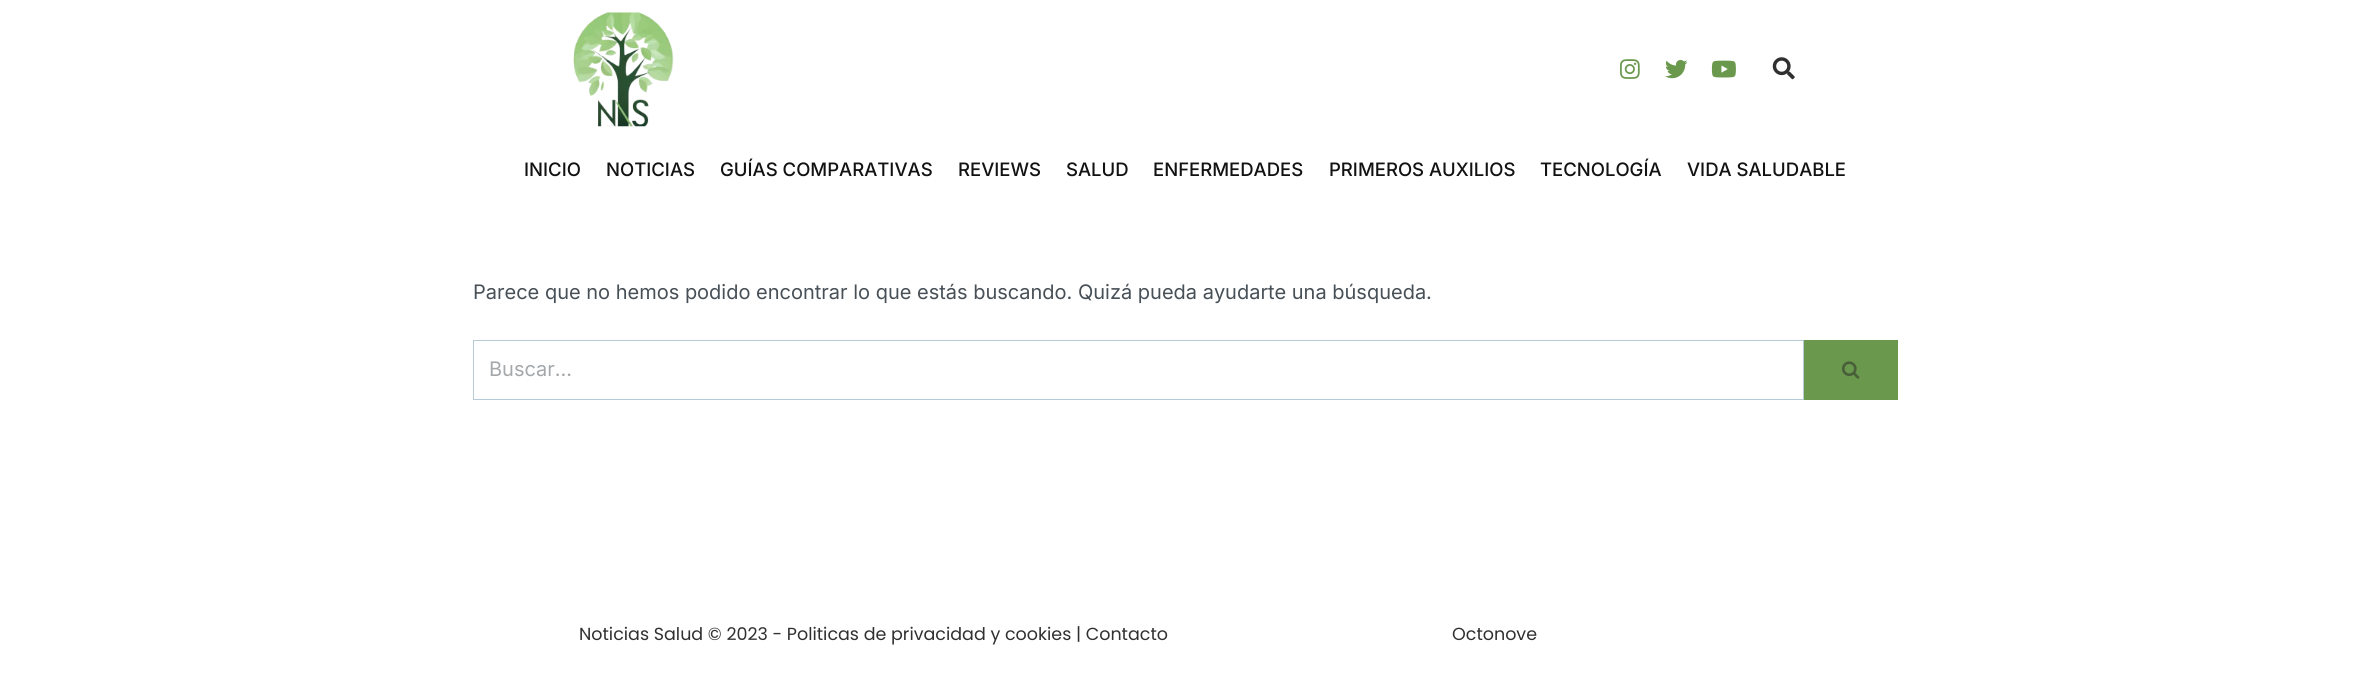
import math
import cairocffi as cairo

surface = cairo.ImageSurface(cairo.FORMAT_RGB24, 2369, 682)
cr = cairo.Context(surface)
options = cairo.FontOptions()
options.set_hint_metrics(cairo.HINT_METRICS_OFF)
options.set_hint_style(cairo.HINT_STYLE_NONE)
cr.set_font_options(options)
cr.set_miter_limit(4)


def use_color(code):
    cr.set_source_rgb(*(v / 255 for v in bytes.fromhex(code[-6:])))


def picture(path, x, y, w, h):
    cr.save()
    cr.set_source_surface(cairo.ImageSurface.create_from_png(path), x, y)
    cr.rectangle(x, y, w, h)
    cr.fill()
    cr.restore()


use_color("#ffffff")
cr.paint()
picture("img1.png", 573, 12, 101, 115)
picture("img2.png", 1620, 59, 20, 20)
picture("img3.png", 1665, 59, 23, 20)
picture("img4.png", 1711, 60, 25, 18)
picture("img5.png", 1772, 57, 23, 23)
cr.select_font_face("Inter Medium")
cr.set_font_size(18.5)
use_color("#121212")
cr.move_to(524, 176)
cr.show_text("INICIO")
cr.move_to(606, 176)
cr.show_text("NOTICIAS")
cr.move_to(720, 176)
cr.show_text("GUÍAS COMPARATIVAS")
cr.move_to(958, 176)
cr.show_text("REVIEWS")
cr.move_to(1066, 176)
cr.show_text("SALUD")
cr.move_to(1153, 176)
cr.show_text("ENFERMEDADES")
cr.move_to(1329, 176)
cr.show_text("PRIMEROS AUXILIOS")
cr.move_to(1540, 176)
cr.show_text("TECNOLOGÍA")
cr.move_to(1687, 176)
cr.show_text("VIDA SALUDABLE")
cr.select_font_face("Inter")
cr.set_font_size(20)
use_color("#485057")
cr.move_to(473, 299)
cr.show_text("Parece que no hemos podido encontrar lo que estás buscando. Quizá pueda ayudarte una búsqueda.")
cr.rectangle(473.5, 340.5, 1330, 59)
use_color("#b7cad7")
cr.set_line_width(1)
cr.stroke()
use_color("#a4a8ab")
cr.move_to(489, 376)
cr.show_text("Buscar...")
use_color("#6a994e")
cr.rectangle(1804, 340, 94, 60)
cr.fill()
picture("img6.png", 1842, 361, 18, 18)
cr.select_font_face("Poppins")
cr.set_font_size(17.5)
use_color("#303030")
cr.move_to(579, 640)
cr.show_text("Noticias Salud © 2023 - Politicas de privacidad y cookies | Contacto")
cr.move_to(1452, 640)
cr.show_text("Octonove")
surface.write_to_png("result.png")
